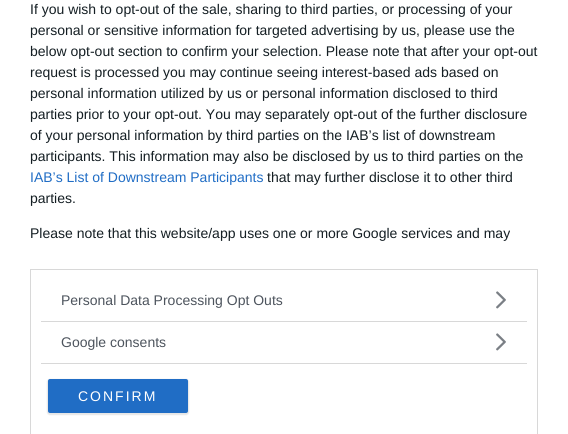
import math
import cairocffi as cairo

surface = cairo.ImageSurface(cairo.FORMAT_RGB24, 568, 434)
cr = cairo.Context(surface)
options = cairo.FontOptions()
options.set_hint_metrics(cairo.HINT_METRICS_OFF)
options.set_hint_style(cairo.HINT_STYLE_NONE)
cr.set_font_options(options)
cr.set_miter_limit(4)


def use_color(code):
    cr.set_source_rgb(*(v / 255 for v in bytes.fromhex(code[-6:])))


def spaced_text(x, y, s, letter, word):
    cr.move_to(x, y)
    for ch in s:
        cr.show_text(ch)
        cr.rel_move_to(letter + word * (ch == ' '), 0)


def round_rect(x, y, w, h, r):
    cr.new_sub_path()
    for i, (u, v) in enumerate([(x + w - r, y + h - r), (x + r, y + h - r), (x + r, y + r), (x + w - r, y + r)]):
        cr.arc(u, v, r, i * math.pi / 2, (i + 1) * math.pi / 2)
    cr.close_path()


def shadow(x, y, w, h, r, blur, alpha):
    cr.push_group_with_content(cairo.CONTENT_ALPHA)
    cr.set_operator(cairo.OPERATOR_SOURCE)
    for i in range(15, -16, -2):
        e = blur * i / 6
        if min(w, h) + 2 * e > 0:
            cr.set_source_rgba(0, 0, 0, alpha * math.erfc((i - 1) / 8.5) / 2)
            round_rect(x - e, y - e, w + 2 * e, h + 2 * e, max(0, min(r + e + blur * .6, min(w, h) / 2 + e)))
            cr.fill()
    cr.mask(cr.pop_group())


def picture(path, x, y, w, h):
    cr.save()
    cr.set_source_surface(cairo.ImageSurface.create_from_png(path), x, y)
    cr.rectangle(x, y, w, h)
    cr.fill()
    cr.restore()


use_color("#ffffff")
cr.paint()
cr.select_font_face("Liberation Sans")
cr.set_font_size(14)
use_color("#141e23")
cr.move_to(30, 14)
cr.show_text("If you wish to opt-out of the sale, sharing to third parties, or processing of your")
cr.move_to(30, 35)
cr.show_text("personal or sensitive information for targeted advertising by us, please use the")
cr.move_to(30, 56)
cr.show_text("below opt-out section to confirm your selection. Please note that after your opt-out")
cr.move_to(30, 77)
cr.show_text("request is processed you may continue seeing interest-based ads based on")
cr.move_to(30, 98)
cr.show_text("personal information utilized by us or personal information disclosed to third")
cr.move_to(30, 119)
cr.show_text("parties prior to your opt-out. You may separately opt-out of the further disclosure")
cr.move_to(30, 140)
cr.show_text("of your personal information by third parties on the IAB’s list of downstream")
cr.move_to(30, 161)
cr.show_text("participants. This information may also be disclosed by us to third parties on the")
use_color("#206dc5")
cr.move_to(30, 182)
cr.show_text("IAB’s List of Downstream Participants")
use_color("#141e23")
cr.move_to(267, 182)
cr.show_text("that may further disclose it to other third")
cr.move_to(30, 203)
cr.show_text("parties.")
cr.move_to(30, 238)
cr.show_text("Please note that this website/app uses one or more Google services and may")
cr.rectangle(30.5, 269.5, 507, 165)
use_color("#d8d8d8")
cr.set_line_width(1)
cr.stroke()
cr.rectangle(41, 321, 486, 1)
cr.fill()
use_color("#4d545d")
cr.move_to(61, 305)
cr.show_text("Personal Data Processing Opt Outs")
picture("img1.png", 496, 291, 10, 18)
use_color("#d8d8d8")
cr.rectangle(41, 363, 486, 1)
cr.fill()
use_color("#4d545d")
cr.move_to(61, 347)
cr.show_text("Google consents")
picture("img1.png", 496, 333, 10, 18)
use_color("#000000")
shadow(47, 379, 142, 36, 3, 0.5, 0.1)
use_color("#206dc5")
round_rect(48, 379, 140, 34, 2)
cr.fill()
use_color("#ffffff")
spaced_text(78, 401, "CONFIRM", 2, 0)
surface.write_to_png("result.png")
